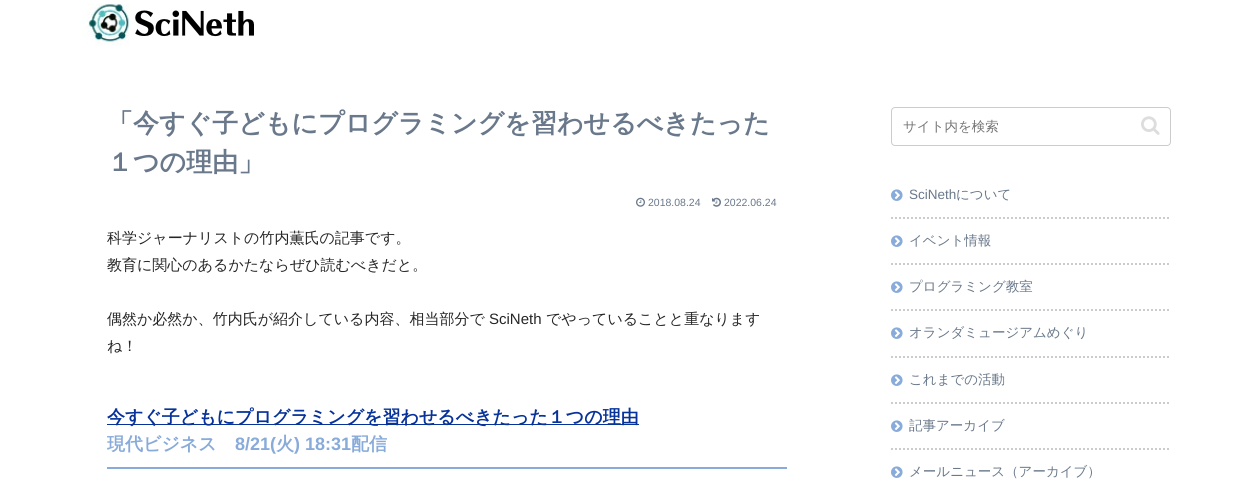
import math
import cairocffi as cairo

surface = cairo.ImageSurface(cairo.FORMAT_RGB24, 1252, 482)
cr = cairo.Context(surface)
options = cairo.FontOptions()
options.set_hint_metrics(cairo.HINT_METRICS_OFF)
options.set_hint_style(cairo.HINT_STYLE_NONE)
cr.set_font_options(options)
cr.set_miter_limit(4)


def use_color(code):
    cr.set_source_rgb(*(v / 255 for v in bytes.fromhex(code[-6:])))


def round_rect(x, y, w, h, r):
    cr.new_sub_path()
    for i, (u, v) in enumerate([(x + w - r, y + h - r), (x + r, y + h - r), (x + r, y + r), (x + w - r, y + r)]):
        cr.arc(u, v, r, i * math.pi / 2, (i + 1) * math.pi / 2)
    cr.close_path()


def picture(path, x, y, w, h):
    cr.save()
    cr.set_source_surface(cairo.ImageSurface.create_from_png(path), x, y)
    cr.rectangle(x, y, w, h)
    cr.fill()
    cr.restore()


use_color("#ffffff")
cr.paint()
picture("img1.png", 82, 3, 172, 43)
cr.select_font_face("WenQuanYi Zen Hei", cairo.FONT_SLANT_NORMAL, cairo.FONT_WEIGHT_BOLD)
cr.set_font_size(26)
use_color("#69788a")
cr.move_to(107, 132)
cr.show_text("「今すぐ子どもにプログラミングを習わせるべきたった")
cr.move_to(107, 171)
cr.show_text("１つの理由」")
picture("img2.png", 636, 197, 9, 10)
cr.select_font_face("Liberation Sans")
cr.set_font_size(10.5)
cr.move_to(648, 206)
cr.show_text("2018.08.24")
picture("img3.png", 712, 197, 9, 10)
cr.move_to(724, 206)
cr.show_text("2022.06.24")
cr.select_font_face("WenQuanYi Zen Hei Medium")
cr.set_font_size(15)
use_color("#262626")
cr.move_to(107, 243)
cr.show_text("科学ジャーナリストの竹内薫氏の記事です。")
cr.move_to(107, 270)
cr.show_text("教育に関心のあるかたならぜひ読むべきだと。")
cr.move_to(107, 324)
cr.show_text("偶然か必然か、竹内氏が紹介している内容、相当部分で")
cr.select_font_face("Liberation Sans")
cr.move_to(489, 324)
cr.show_text("SciNeth")
cr.select_font_face("WenQuanYi Zen Hei Medium")
cr.move_to(546, 324)
cr.show_text("でやっていることと重なります")
cr.move_to(107, 351)
cr.show_text("ね！")
use_color("#88abda")
cr.rectangle(107, 467, 680, 2)
cr.fill()
use_color("#063299")
cr.rectangle(107, 424, 532, 1)
cr.fill()
cr.select_font_face("WenQuanYi Zen Hei", cairo.FONT_SLANT_NORMAL, cairo.FONT_WEIGHT_BOLD)
cr.set_font_size(18)
cr.move_to(107, 423)
cr.show_text("今すぐ子どもにプログラミングを習わせるべきたった１つの理由")
use_color("#88abda")
cr.move_to(107, 450)
cr.show_text("現代ビジネス")
cr.select_font_face("Liberation Sans", cairo.FONT_SLANT_NORMAL, cairo.FONT_WEIGHT_BOLD)
cr.move_to(235, 450)
cr.show_text("8/21(")
cr.select_font_face("WenQuanYi Zen Hei", cairo.FONT_SLANT_NORMAL, cairo.FONT_WEIGHT_BOLD)
cr.move_to(276, 450)
cr.show_text("火")
cr.select_font_face("Liberation Sans", cairo.FONT_SLANT_NORMAL, cairo.FONT_WEIGHT_BOLD)
cr.move_to(294, 450)
cr.show_text(") 18:31")
cr.select_font_face("WenQuanYi Zen Hei", cairo.FONT_SLANT_NORMAL, cairo.FONT_WEIGHT_BOLD)
cr.move_to(351, 450)
cr.show_text("配信")
round_rect(891.5, 107.5, 279, 38, 3.5)
use_color("#cccccc")
cr.set_line_width(1)
cr.stroke()
cr.select_font_face("WenQuanYi Zen Hei Medium")
cr.set_font_size(13.5)
use_color("#757575")
cr.move_to(903, 131)
cr.show_text("サイト内を検索")
picture("img4.png", 1141, 116, 19, 19)
cr.new_path()
cr.move_to(891, 218)
cr.line_to(1171, 218)
use_color("#cccccc")
cr.set_line_width(2)
cr.set_dash([2, 2])
cr.stroke()
picture("img5.png", 891, 189, 12, 12)
cr.select_font_face("Liberation Sans")
use_color("#69788a")
cr.move_to(909, 199)
cr.show_text("SciNeth")
cr.select_font_face("WenQuanYi Zen Hei Medium")
cr.move_to(956, 199)
cr.show_text("について")
cr.new_path()
cr.move_to(891, 264)
cr.line_to(1171, 264)
use_color("#cccccc")
cr.stroke()
picture("img5.png", 891, 235, 12, 12)
use_color("#69788a")
cr.move_to(909, 245)
cr.show_text("イベント情報")
cr.new_path()
cr.move_to(891, 310)
cr.line_to(1171, 310)
use_color("#cccccc")
cr.stroke()
picture("img5.png", 891, 281, 12, 12)
use_color("#69788a")
cr.move_to(909, 291)
cr.show_text("プログラミング教室")
cr.new_path()
cr.move_to(891, 357)
cr.line_to(1171, 357)
use_color("#cccccc")
cr.stroke()
picture("img5.png", 891, 327, 12, 12)
use_color("#69788a")
cr.move_to(909, 337)
cr.show_text("オランダミュージアムめぐり")
cr.new_path()
cr.move_to(891, 403)
cr.line_to(1171, 403)
use_color("#cccccc")
cr.stroke()
picture("img5.png", 891, 374, 12, 12)
use_color("#69788a")
cr.move_to(909, 384)
cr.show_text("これまでの活動")
cr.new_path()
cr.move_to(891, 449)
cr.line_to(1171, 449)
use_color("#cccccc")
cr.stroke()
picture("img5.png", 891, 420, 12, 12)
use_color("#69788a")
cr.move_to(909, 430)
cr.show_text("記事アーカイブ")
picture("img5.png", 891, 466, 12, 12)
cr.move_to(909, 476)
cr.show_text("メールニュース（アーカイブ）")
surface.write_to_png("result.png")
